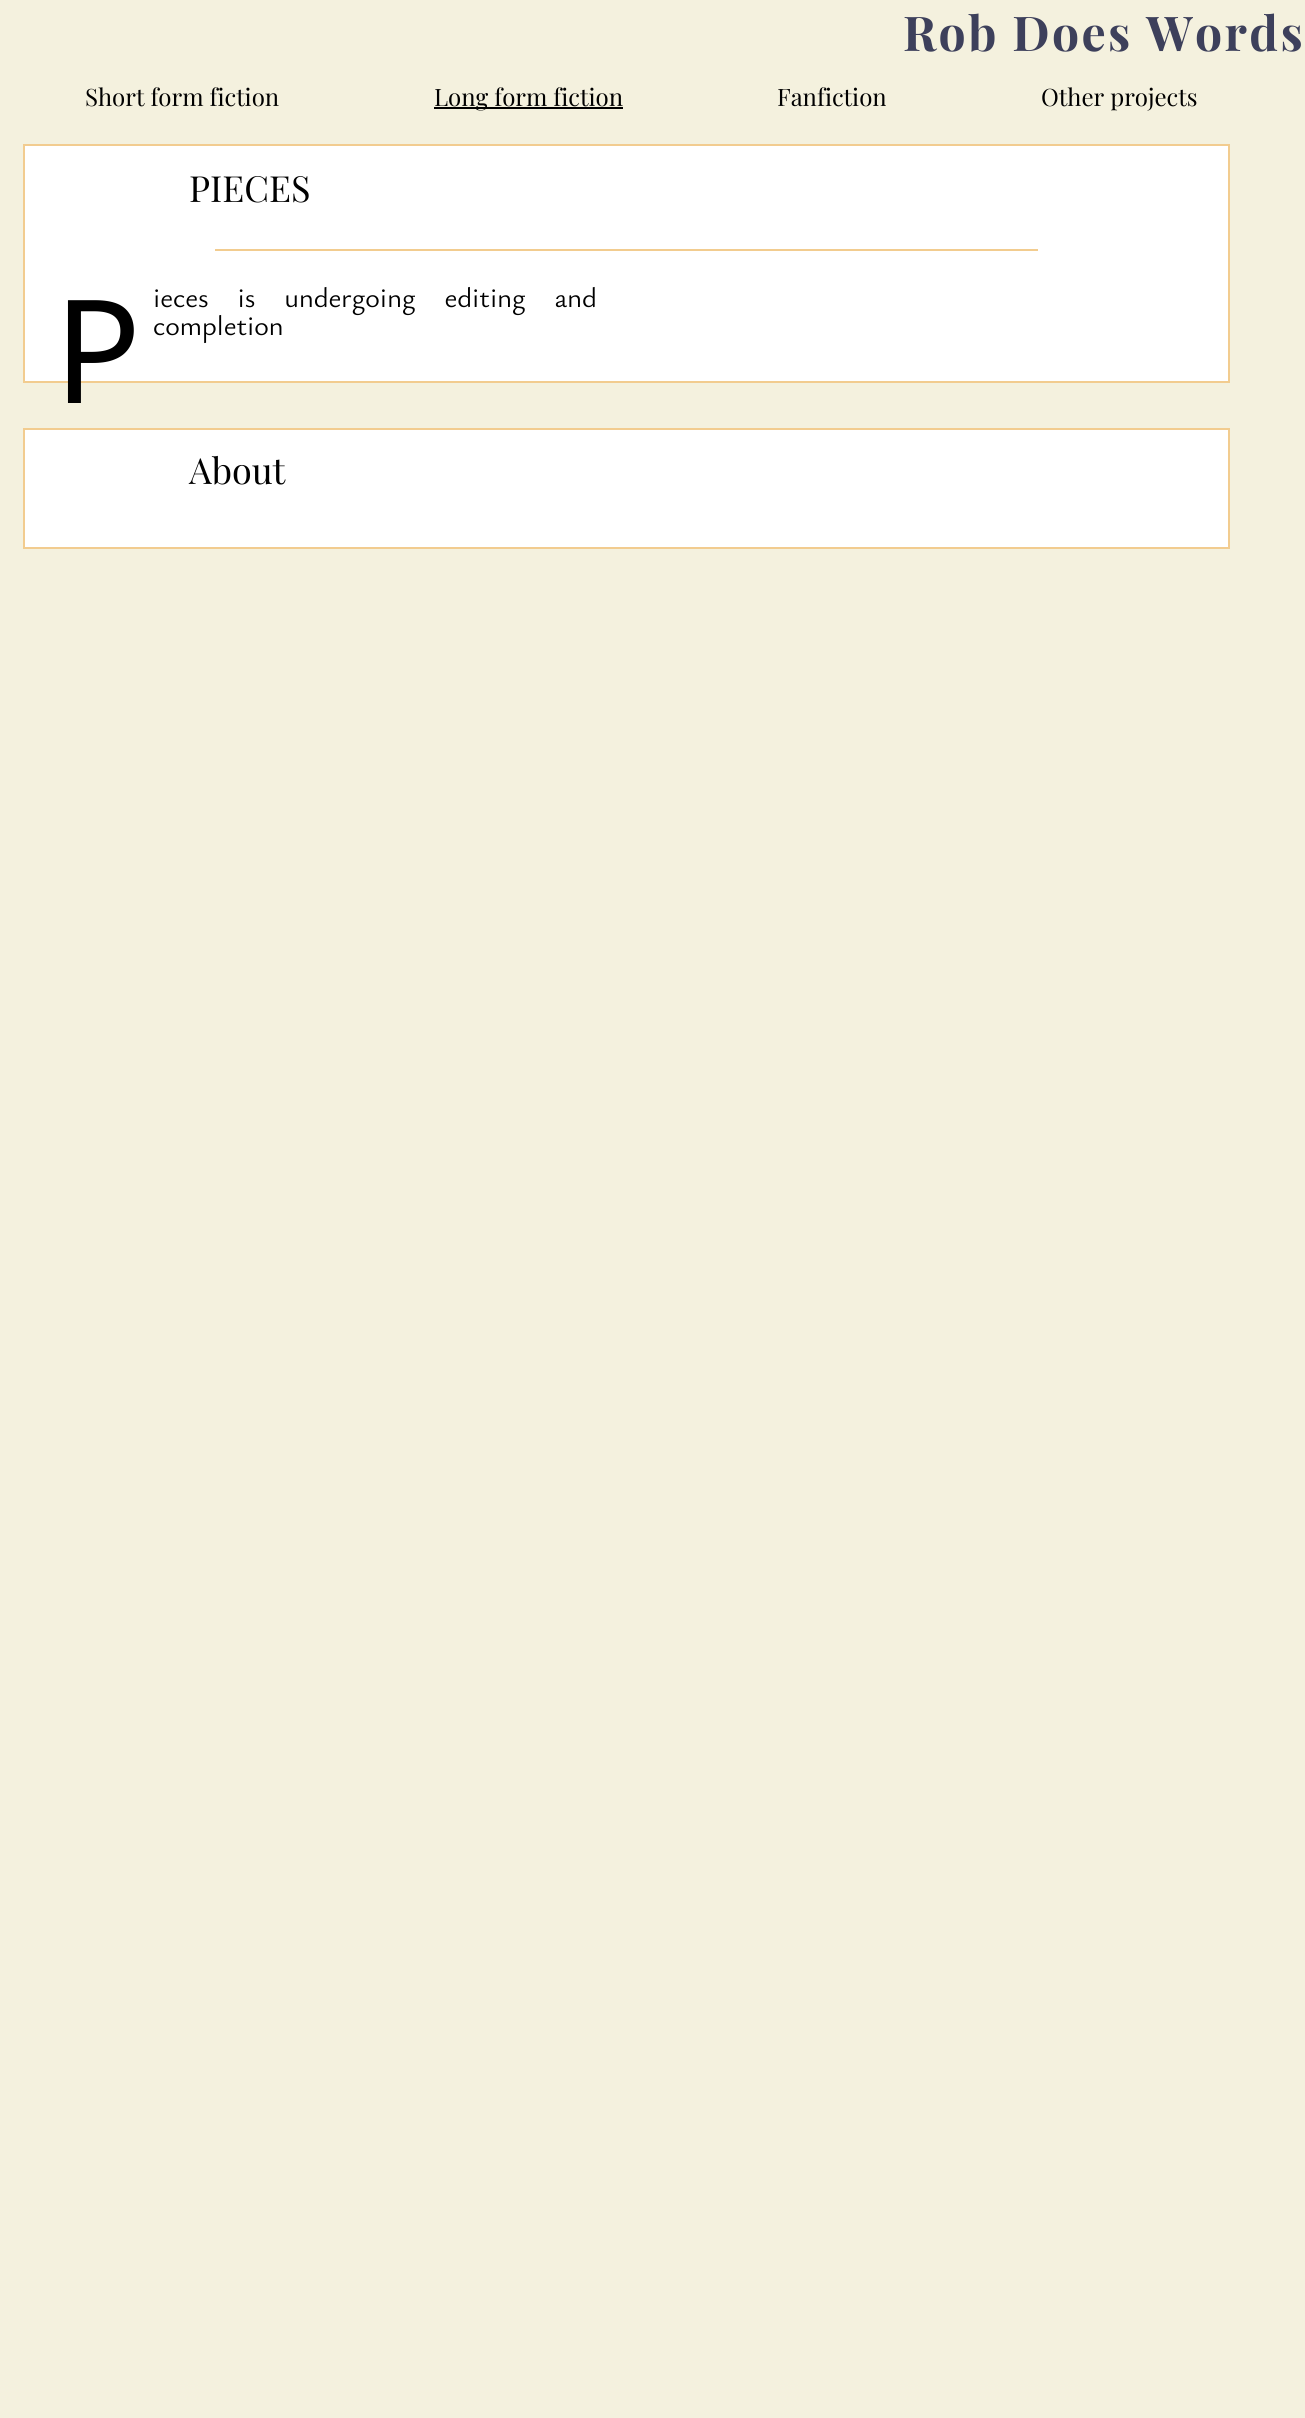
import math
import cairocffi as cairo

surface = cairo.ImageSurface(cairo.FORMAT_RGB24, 1305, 2418)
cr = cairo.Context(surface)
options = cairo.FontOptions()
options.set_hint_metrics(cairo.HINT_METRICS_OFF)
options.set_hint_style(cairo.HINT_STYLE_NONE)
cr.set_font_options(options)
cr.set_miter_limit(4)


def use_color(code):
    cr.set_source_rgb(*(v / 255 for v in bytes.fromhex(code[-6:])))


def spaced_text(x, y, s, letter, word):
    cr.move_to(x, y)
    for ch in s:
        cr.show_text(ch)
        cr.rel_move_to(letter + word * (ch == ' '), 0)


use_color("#f4f1de")
cr.paint()
cr.select_font_face("Playfair Display", cairo.FONT_SLANT_NORMAL, cairo.FONT_WEIGHT_BOLD)
cr.set_font_size(48)
use_color("#3d405b")
spaced_text(903, 51, "Rob Does Words", 2.4, 0)
cr.select_font_face("Playfair Display")
cr.set_font_size(24)
use_color("#000000")
cr.move_to(85, 106)
cr.show_text("Short form fiction")
cr.rectangle(434, 107, 189, 2)
cr.fill()
cr.move_to(434, 106)
cr.show_text("Long form fiction")
cr.move_to(777, 106)
cr.show_text("Fanfiction")
cr.move_to(1041, 106)
cr.show_text("Other projects")
use_color("#ffffff")
cr.rectangle(24, 145, 1205, 237)
cr.fill_preserve()
use_color("#f2cc8f")
cr.stroke()
cr.set_font_size(36)
use_color("#000000")
cr.move_to(189, 202)
cr.show_text("PIECES")
use_color("#f2cc8f")
cr.rectangle(215, 249, 823, 2)
cr.fill()
cr.select_font_face("Noto Sans")
cr.set_font_size(144)
use_color("#000000")
cr.move_to(54, 403)
cr.show_text("P")
cr.select_font_face("Ysabeau")
cr.set_font_size(28)
spaced_text(153, 307, "ieces is undergoing editing and", 0, 22)
cr.move_to(153, 335)
cr.show_text("completion")
use_color("#ffffff")
cr.rectangle(24, 429, 1205, 119)
cr.fill_preserve()
use_color("#f2cc8f")
cr.stroke()
cr.select_font_face("Playfair Display")
cr.set_font_size(36)
use_color("#000000")
cr.move_to(189, 484)
cr.show_text("About")
surface.write_to_png("result.png")
